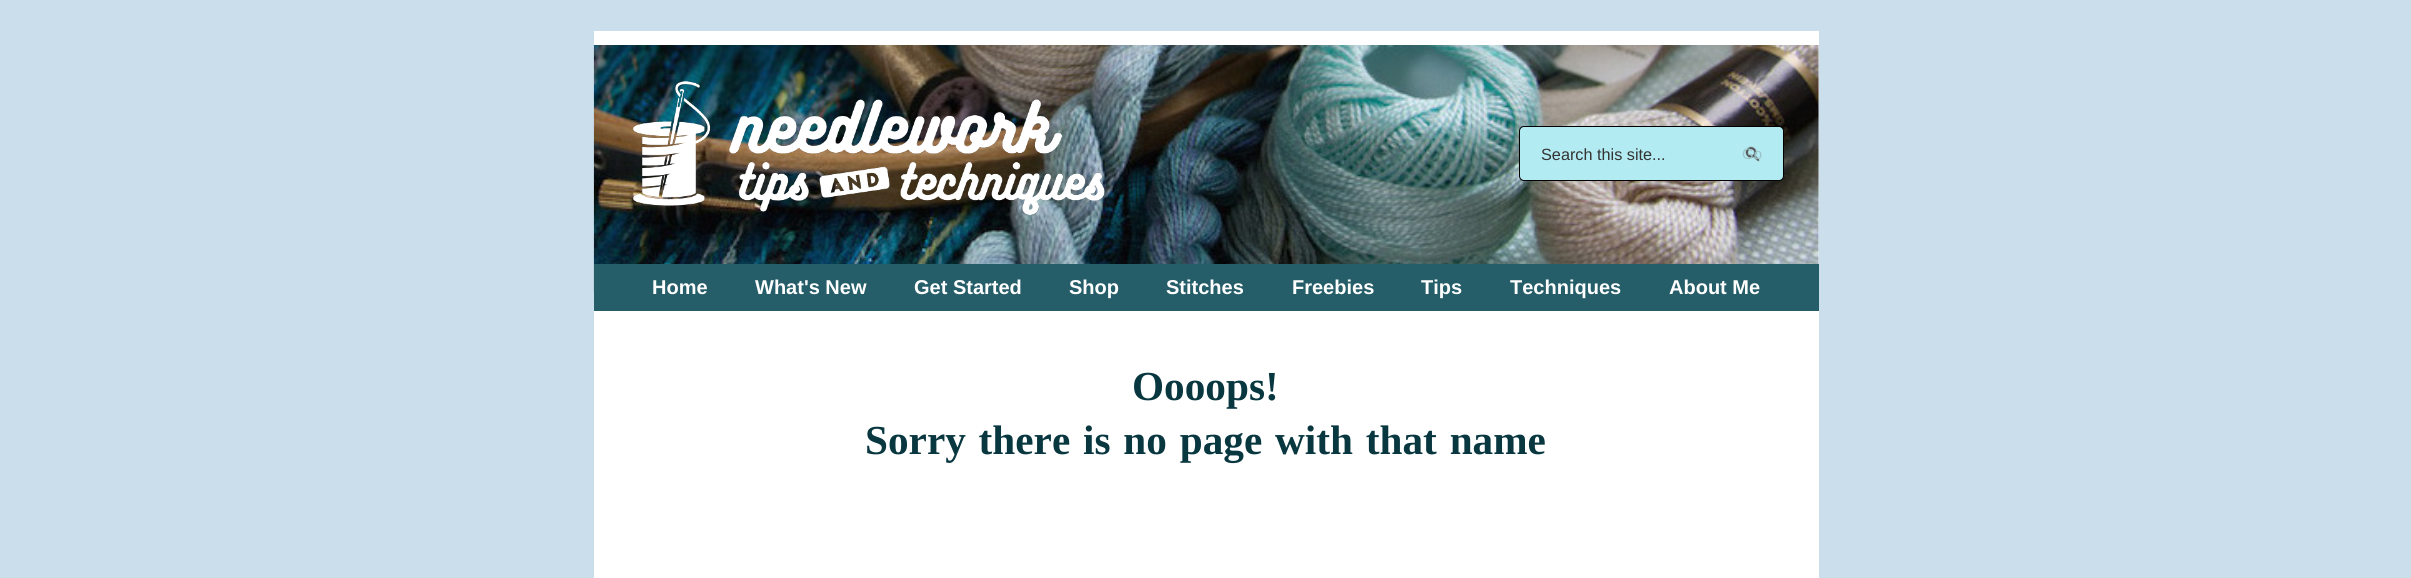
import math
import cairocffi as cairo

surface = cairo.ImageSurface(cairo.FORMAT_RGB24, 2411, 578)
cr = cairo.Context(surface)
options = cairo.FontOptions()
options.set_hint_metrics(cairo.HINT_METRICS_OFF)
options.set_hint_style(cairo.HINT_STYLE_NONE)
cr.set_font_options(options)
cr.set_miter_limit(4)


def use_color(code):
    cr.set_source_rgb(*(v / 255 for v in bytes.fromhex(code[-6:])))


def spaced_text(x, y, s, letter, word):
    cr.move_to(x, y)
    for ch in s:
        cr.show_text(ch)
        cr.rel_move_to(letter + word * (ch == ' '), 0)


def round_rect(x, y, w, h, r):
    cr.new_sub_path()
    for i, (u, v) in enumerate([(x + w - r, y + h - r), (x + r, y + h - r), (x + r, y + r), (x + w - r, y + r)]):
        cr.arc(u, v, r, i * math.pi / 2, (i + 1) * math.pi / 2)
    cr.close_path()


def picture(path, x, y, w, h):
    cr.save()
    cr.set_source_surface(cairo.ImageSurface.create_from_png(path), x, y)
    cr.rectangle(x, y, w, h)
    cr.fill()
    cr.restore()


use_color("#cadeeb")
cr.paint()
use_color("#ffffff")
cr.rectangle(594, 31, 1225, 547)
cr.fill()
picture("img1.png", 593, 45, 1226, 248)
picture("img2.png", 633, 81, 472, 134)
use_color("#b3ebf2")
round_rect(1519.5, 126.5, 264, 54, 4.5)
cr.fill_preserve()
use_color("#000000")
cr.set_line_width(1)
cr.stroke()
cr.select_font_face("Liberation Sans")
cr.set_font_size(16.25)
use_color("#333333")
cr.move_to(1541, 160)
cr.show_text("Search this site...")
picture("img3.png", 1745, 146, 15, 16)
cr.set_font_size(15)
use_color("#9bc5ca")
cr.move_to(1742, 159)
cr.show_text("Go")
use_color("#255e69")
cr.rectangle(594, 264, 1225, 47)
cr.fill()
cr.select_font_face("Liberation Sans", cairo.FONT_SLANT_NORMAL, cairo.FONT_WEIGHT_BOLD)
cr.set_font_size(20)
use_color("#ffffff")
cr.move_to(652, 294)
cr.show_text("Home")
cr.move_to(755, 294)
cr.show_text("What's New")
cr.move_to(914, 294)
cr.show_text("Get Started")
cr.move_to(1069, 294)
cr.show_text("Shop")
cr.move_to(1166, 294)
cr.show_text("Stitches")
cr.move_to(1292, 294)
cr.show_text("Freebies")
cr.move_to(1421, 294)
cr.show_text("Tips")
cr.move_to(1510, 294)
cr.show_text("Techniques")
cr.move_to(1669, 294)
cr.show_text("About Me")
cr.select_font_face("Liberation Serif", cairo.FONT_SLANT_NORMAL, cairo.FONT_WEIGHT_BOLD)
cr.set_font_size(41.25)
use_color("#083740")
cr.move_to(1132, 400)
cr.show_text("Oooops!")
spaced_text(865, 454, "Sorry there is no page with that name", 0, 2.5)
surface.write_to_png("result.png")
